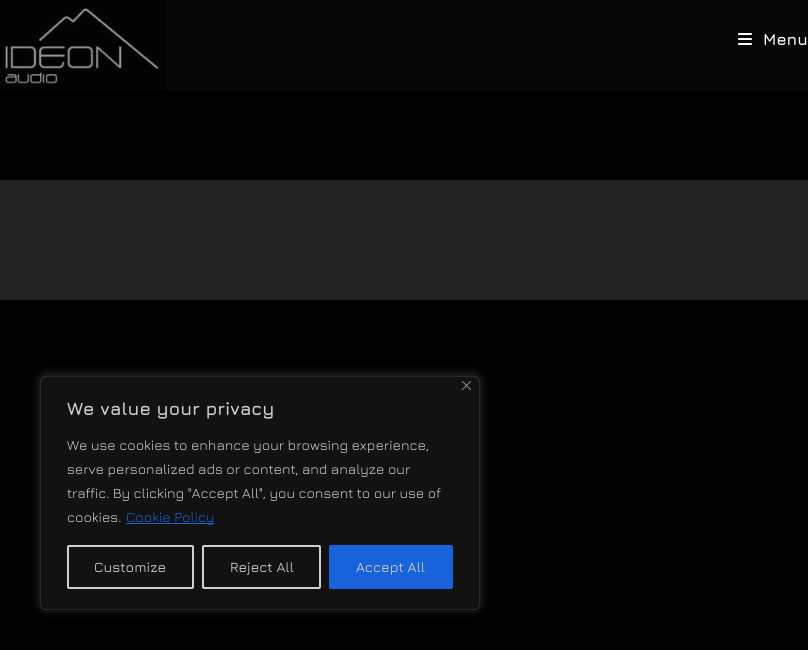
import math
import cairocffi as cairo

surface = cairo.ImageSurface(cairo.FORMAT_RGB24, 808, 650)
cr = cairo.Context(surface)
options = cairo.FontOptions()
options.set_hint_metrics(cairo.HINT_METRICS_OFF)
options.set_hint_style(cairo.HINT_STYLE_NONE)
cr.set_font_options(options)
cr.set_miter_limit(4)


def use_color(code):
    cr.set_source_rgb(*(v / 255 for v in bytes.fromhex(code[-6:])))


def round_rect(x, y, w, h, r):
    cr.new_sub_path()
    for i, (u, v) in enumerate([(x + w - r, y + h - r), (x + r, y + h - r), (x + r, y + r), (x + w - r, y + r)]):
        cr.arc(u, v, r, i * math.pi / 2, (i + 1) * math.pi / 2)
    cr.close_path()


def shadow(x, y, w, h, r, blur, alpha):
    cr.push_group_with_content(cairo.CONTENT_ALPHA)
    cr.set_operator(cairo.OPERATOR_SOURCE)
    for i in range(15, -16, -2):
        e = blur * i / 6
        if min(w, h) + 2 * e > 0:
            cr.set_source_rgba(0, 0, 0, alpha * math.erfc((i - 1) / 8.5) / 2)
            round_rect(x - e, y - e, w + 2 * e, h + 2 * e, max(0, min(r + e + blur * .6, min(w, h) / 2 + e)))
            cr.fill()
    cr.mask(cr.pop_group())


def picture(path, x, y, w, h):
    cr.save()
    cr.set_source_surface(cairo.ImageSurface.create_from_png(path), x, y)
    cr.rectangle(x, y, w, h)
    cr.fill()
    cr.restore()


use_color("#000000")
cr.paint()
use_color("#070707")
cr.rectangle(0, 0, 808, 90)
cr.fill()
picture("img1.png", 0, 0, 165, 90)
picture("img2.png", 738, 33, 14, 12)
cr.select_font_face("Jura", cairo.FONT_SLANT_NORMAL, cairo.FONT_WEIGHT_BOLD)
cr.set_font_size(16)
use_color("#ffffff")
cr.move_to(763, 45)
cr.show_text("Menu")
use_color("#222222")
cr.rectangle(0, 180, 808, 120)
cr.fill()
use_color("#acabab")
shadow(40, 375, 440, 234, 6, 5, 0.3)
use_color("#121212")
round_rect(40.5, 376.5, 439, 233, 5.5)
cr.fill_preserve()
use_color("#2a2a2a")
cr.set_line_width(1)
cr.stroke()
picture("img3.png", 462, 381, 9, 9)
cr.set_font_size(18)
use_color("#d0d0d0")
cr.move_to(67, 415)
cr.show_text("We value your privacy")
cr.select_font_face("Jura")
cr.set_font_size(14)
cr.move_to(67, 450)
cr.show_text("We use cookies to enhance your browsing experience,")
cr.move_to(67, 474)
cr.show_text("serve personalized ads or content, and analyze our")
cr.move_to(67, 498)
cr.show_text("traffic. By clicking \"Accept All\", you consent to our use of")
cr.move_to(67, 522)
cr.show_text("cookies.")
use_color("#1863dc")
cr.rectangle(126, 523, 88, 1)
cr.fill()
cr.move_to(126, 522)
cr.show_text("Cookie Policy")
round_rect(68, 546, 125, 42, 1)
use_color("#d0d0d0")
cr.set_line_width(2)
cr.stroke()
cr.select_font_face("Jura Medium")
cr.move_to(94, 572)
cr.show_text("Customize")
round_rect(203, 546, 117, 42, 1)
cr.stroke()
cr.move_to(230, 572)
cr.show_text("Reject All")
use_color("#1863dc")
round_rect(330, 546, 122, 42, 1)
cr.fill_preserve()
cr.stroke()
use_color("#d0d0d0")
cr.move_to(356, 572)
cr.show_text("Accept All")
surface.write_to_png("result.png")
